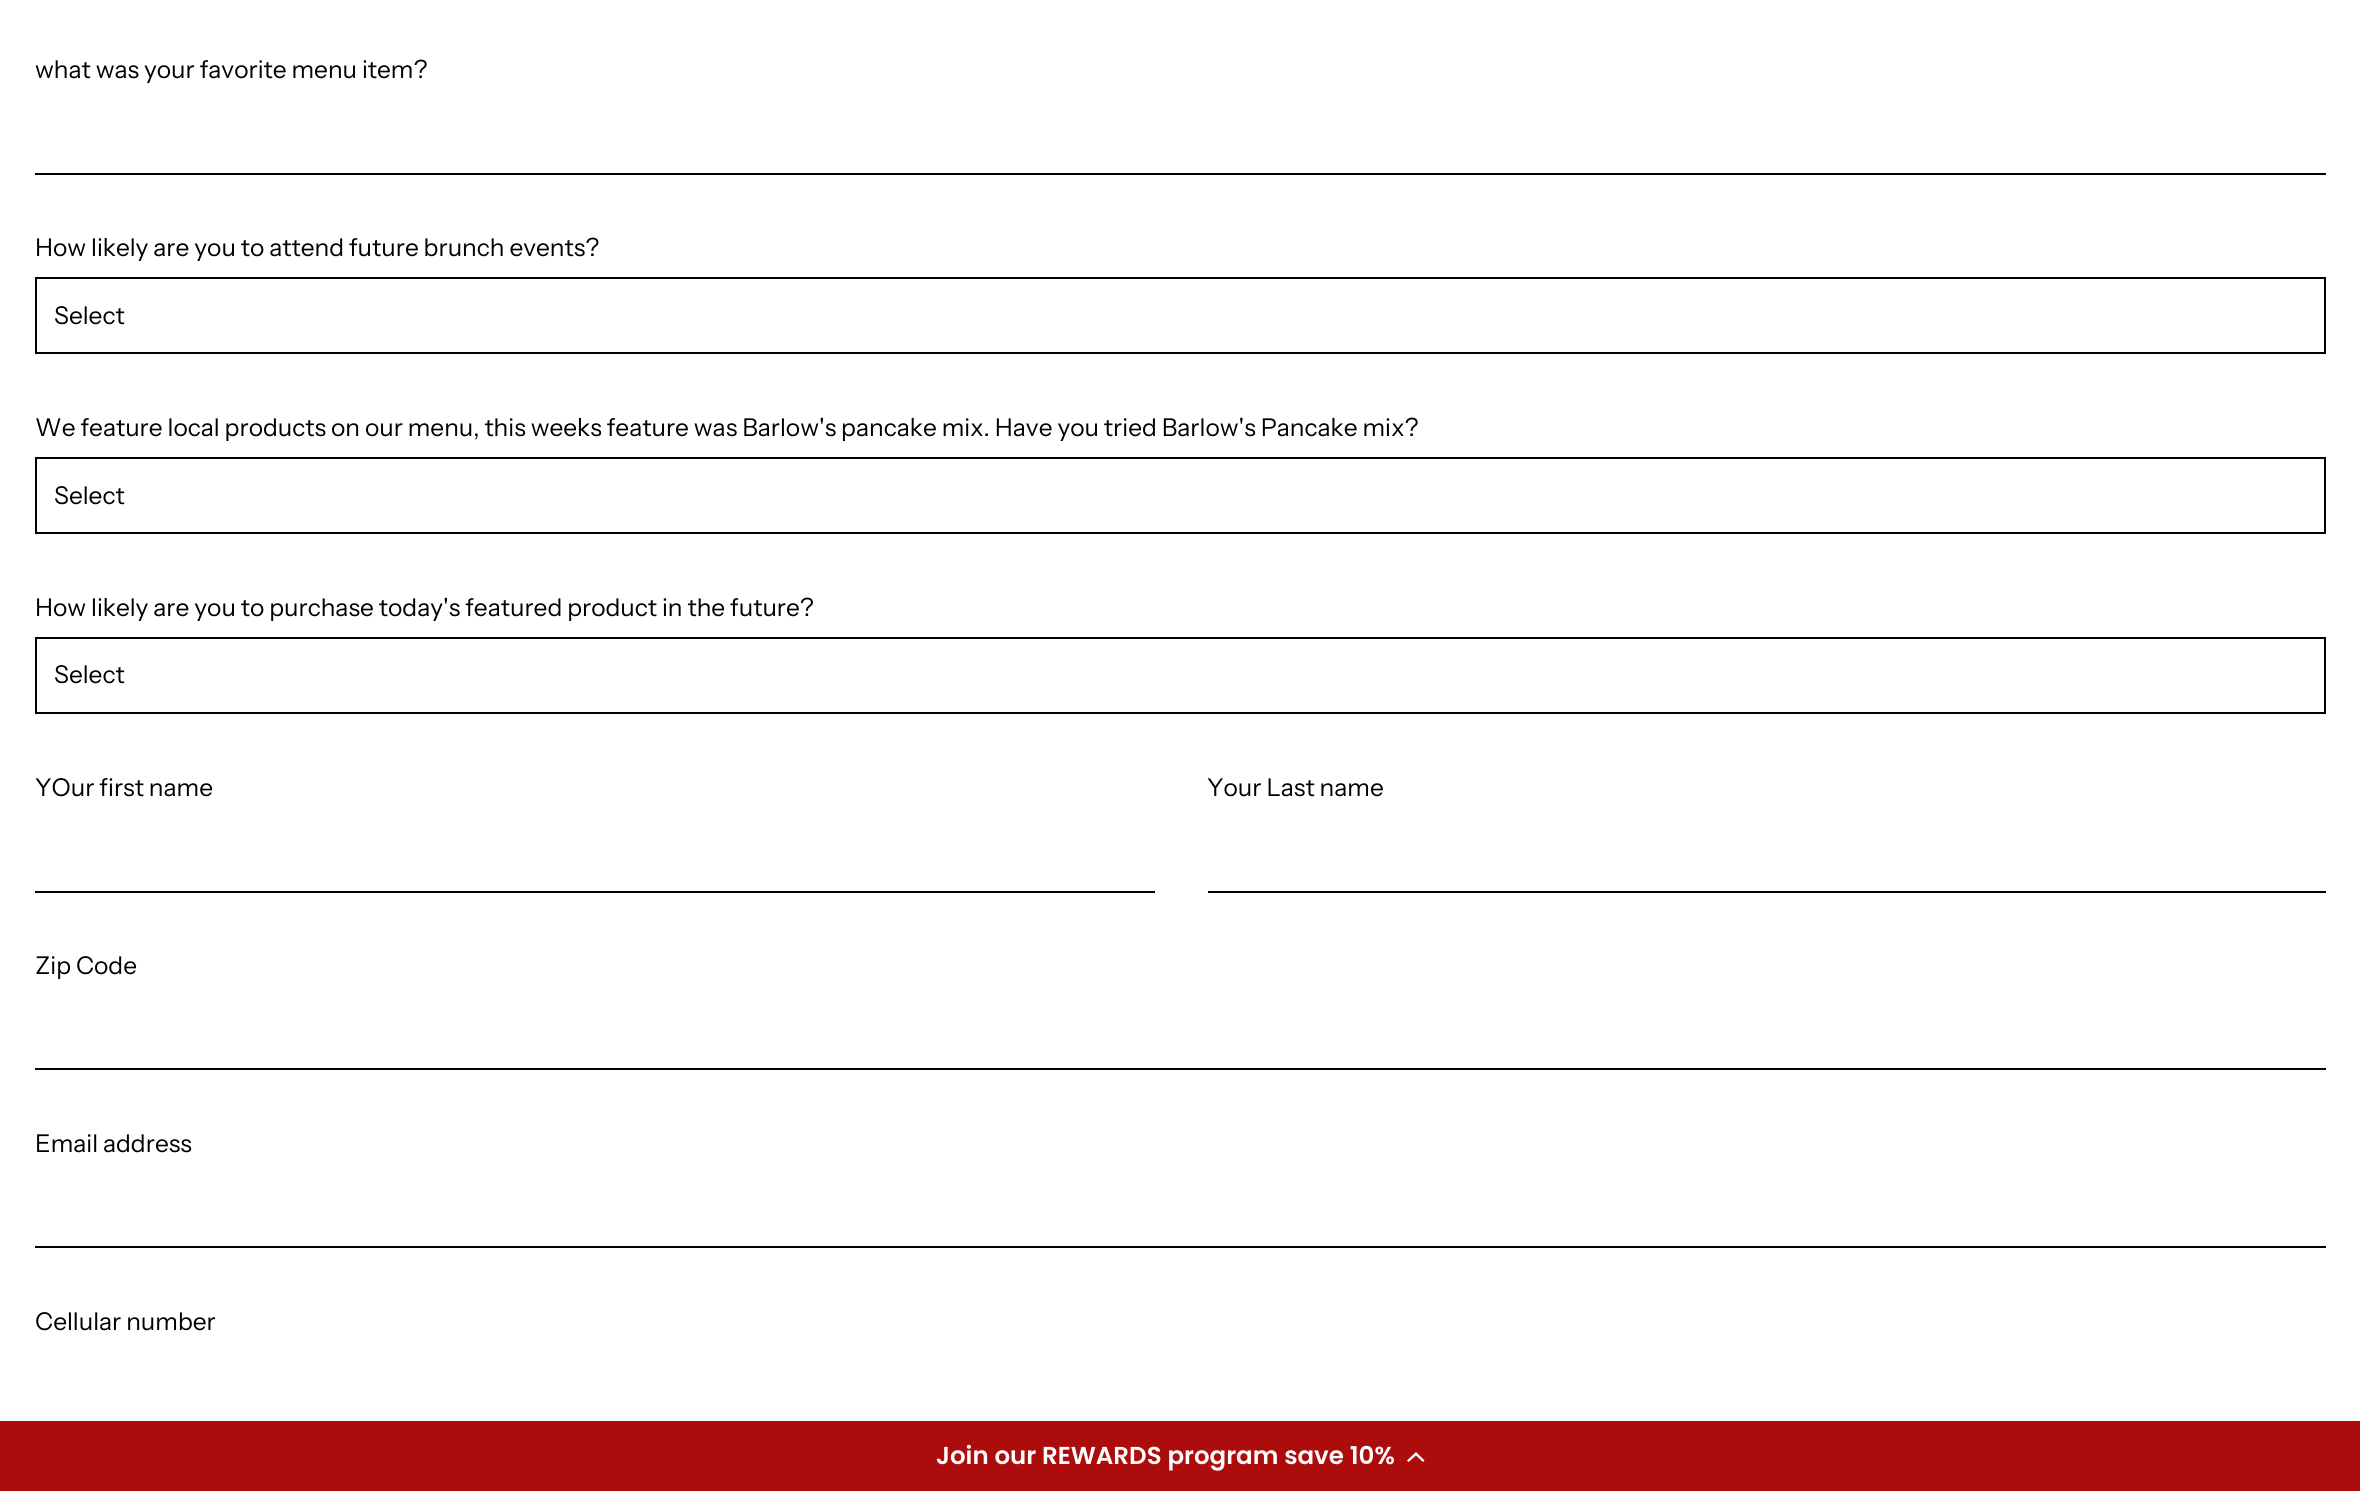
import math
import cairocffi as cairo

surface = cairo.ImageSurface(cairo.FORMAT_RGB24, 2360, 1491)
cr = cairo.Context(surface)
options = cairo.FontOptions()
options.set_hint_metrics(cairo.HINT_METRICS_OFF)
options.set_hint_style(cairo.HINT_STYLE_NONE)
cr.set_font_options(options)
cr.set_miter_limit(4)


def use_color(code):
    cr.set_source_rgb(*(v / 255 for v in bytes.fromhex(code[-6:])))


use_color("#ffffff")
cr.paint()
cr.select_font_face("Instrument Sans")
cr.set_font_size(24.5)
use_color("#000000")
cr.move_to(35, 78)
cr.show_text("what was your favorite menu item?")
cr.rectangle(35, 173, 2291, 2)
cr.fill()
cr.move_to(35, 256)
cr.show_text("How likely are you to attend future brunch events?")
cr.rectangle(36, 278, 2289, 75)
cr.stroke()
cr.move_to(54, 324)
cr.show_text("Select")
cr.move_to(35, 436)
cr.show_text("We feature local products on our menu, this weeks feature was Barlow's pancake mix. Have you tried Barlow's Pancake mix?")
cr.rectangle(36, 458, 2289, 75)
cr.stroke()
cr.move_to(54, 504)
cr.show_text("Select")
cr.move_to(35, 616)
cr.show_text("How likely are you to purchase today's featured product in the future?")
cr.rectangle(36, 638, 2289, 75)
cr.stroke()
cr.move_to(54, 683)
cr.show_text("Select")
cr.move_to(35, 796)
cr.show_text("YOur first name")
cr.rectangle(35, 891, 1120, 2)
cr.fill()
cr.move_to(1207, 796)
cr.show_text("Your Last name")
cr.rectangle(1208, 891, 1118, 2)
cr.fill()
cr.move_to(35, 974)
cr.show_text("Zip Code")
cr.rectangle(35, 1068, 2291, 2)
cr.fill()
cr.move_to(35, 1152)
cr.show_text("Email address")
cr.rectangle(35, 1246, 2291, 2)
cr.fill()
cr.move_to(35, 1330)
cr.show_text("Cellular number")
use_color("#ac0c0c")
cr.rectangle(0, 1421, 2360, 70)
cr.fill()
cr.select_font_face("Poppins SemiBold")
use_color("#ffffff")
cr.move_to(936, 1464)
cr.show_text("Join our REWARDS program save 10%")
cr.new_path()
cr.move_to(1416, 1455.5)
cr.line_to(1408.5, 1462)
cr.line_to(1407, 1460.5)
cr.line_to(1416, 1452)
cr.line_to(1424.5, 1460.5)
cr.line_to(1423, 1462)
cr.close_path()
cr.fill()
surface.write_to_png("result.png")
